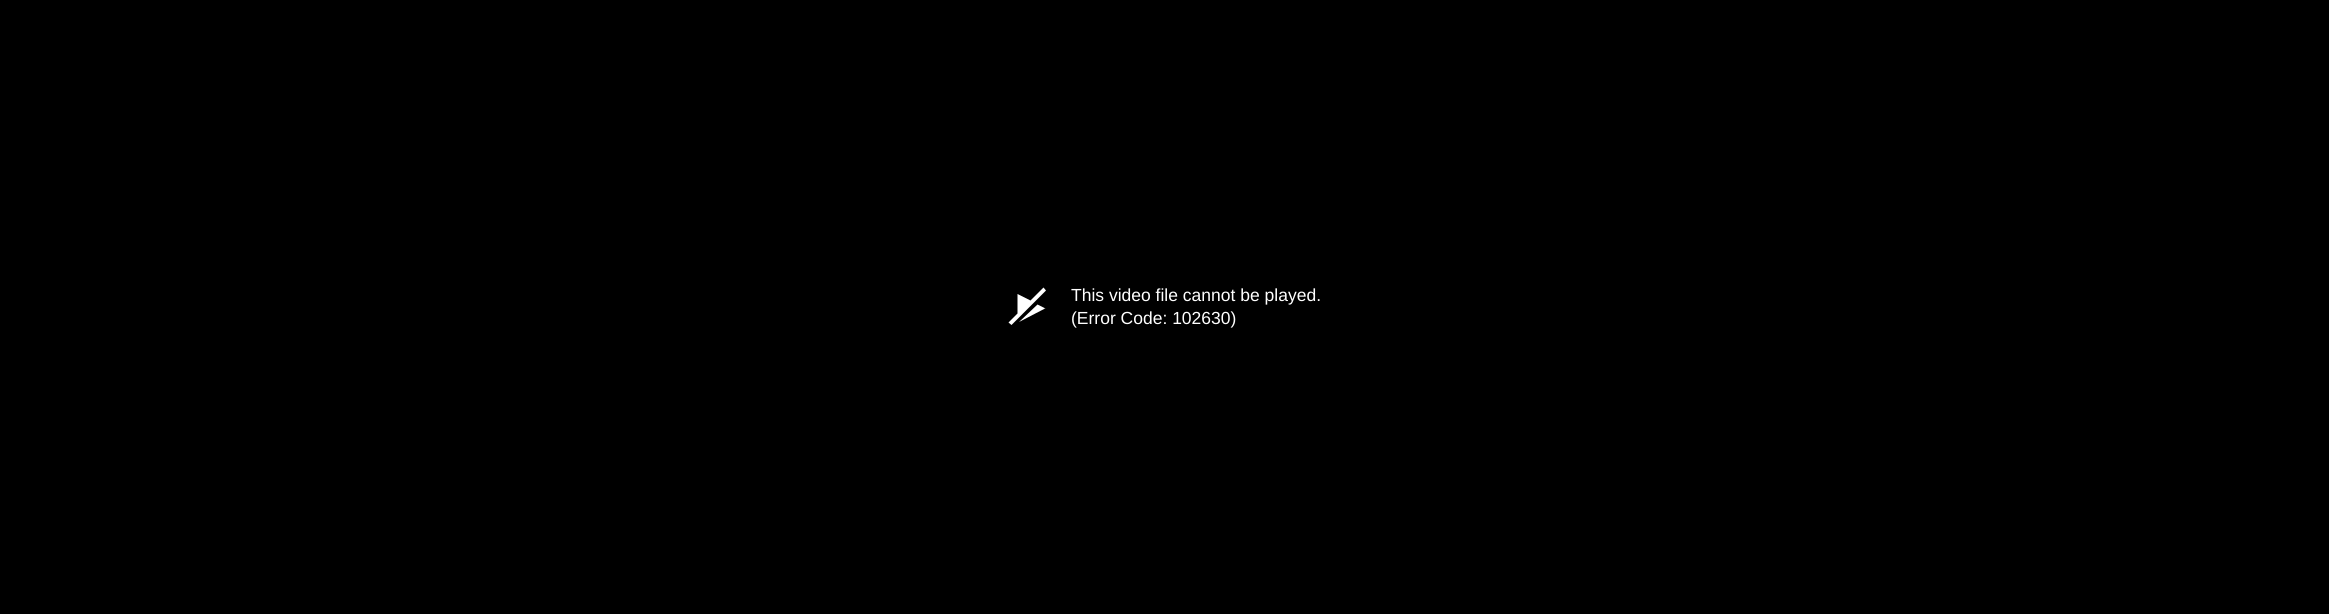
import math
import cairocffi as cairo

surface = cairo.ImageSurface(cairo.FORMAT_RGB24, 2329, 614)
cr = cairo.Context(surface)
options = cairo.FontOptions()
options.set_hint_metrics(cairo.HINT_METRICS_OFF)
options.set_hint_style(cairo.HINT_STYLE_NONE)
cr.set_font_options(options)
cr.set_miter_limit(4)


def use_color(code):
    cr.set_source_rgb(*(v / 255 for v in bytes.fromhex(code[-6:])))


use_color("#000000")
cr.paint()
use_color("#ffffff")
cr.new_path()
cr.move_to(1045, 308.5)
cr.line_to(1019, 322)
cr.line_to(1037.5, 304.5)
cr.curve_to(1044.5, 308, 1046, 308.5, 1045, 309)
cr.close_path()
cr.move_to(1043.5, 287.5)
cr.line_to(1030.5, 300.5)
cr.line_to(1017.5, 294)
cr.line_to(1017.5, 313.5)
cr.line_to(1008.5, 322.5)
cr.line_to(1011.5, 325)
cr.line_to(1046, 290.5)
cr.close_path()
cr.fill()
cr.select_font_face("Liberation Sans")
cr.set_font_size(17.5)
cr.move_to(1071, 301)
cr.show_text("This video file cannot be played.")
cr.move_to(1071, 324)
cr.show_text("(Error Code: 102630)")
surface.write_to_png("result.png")
